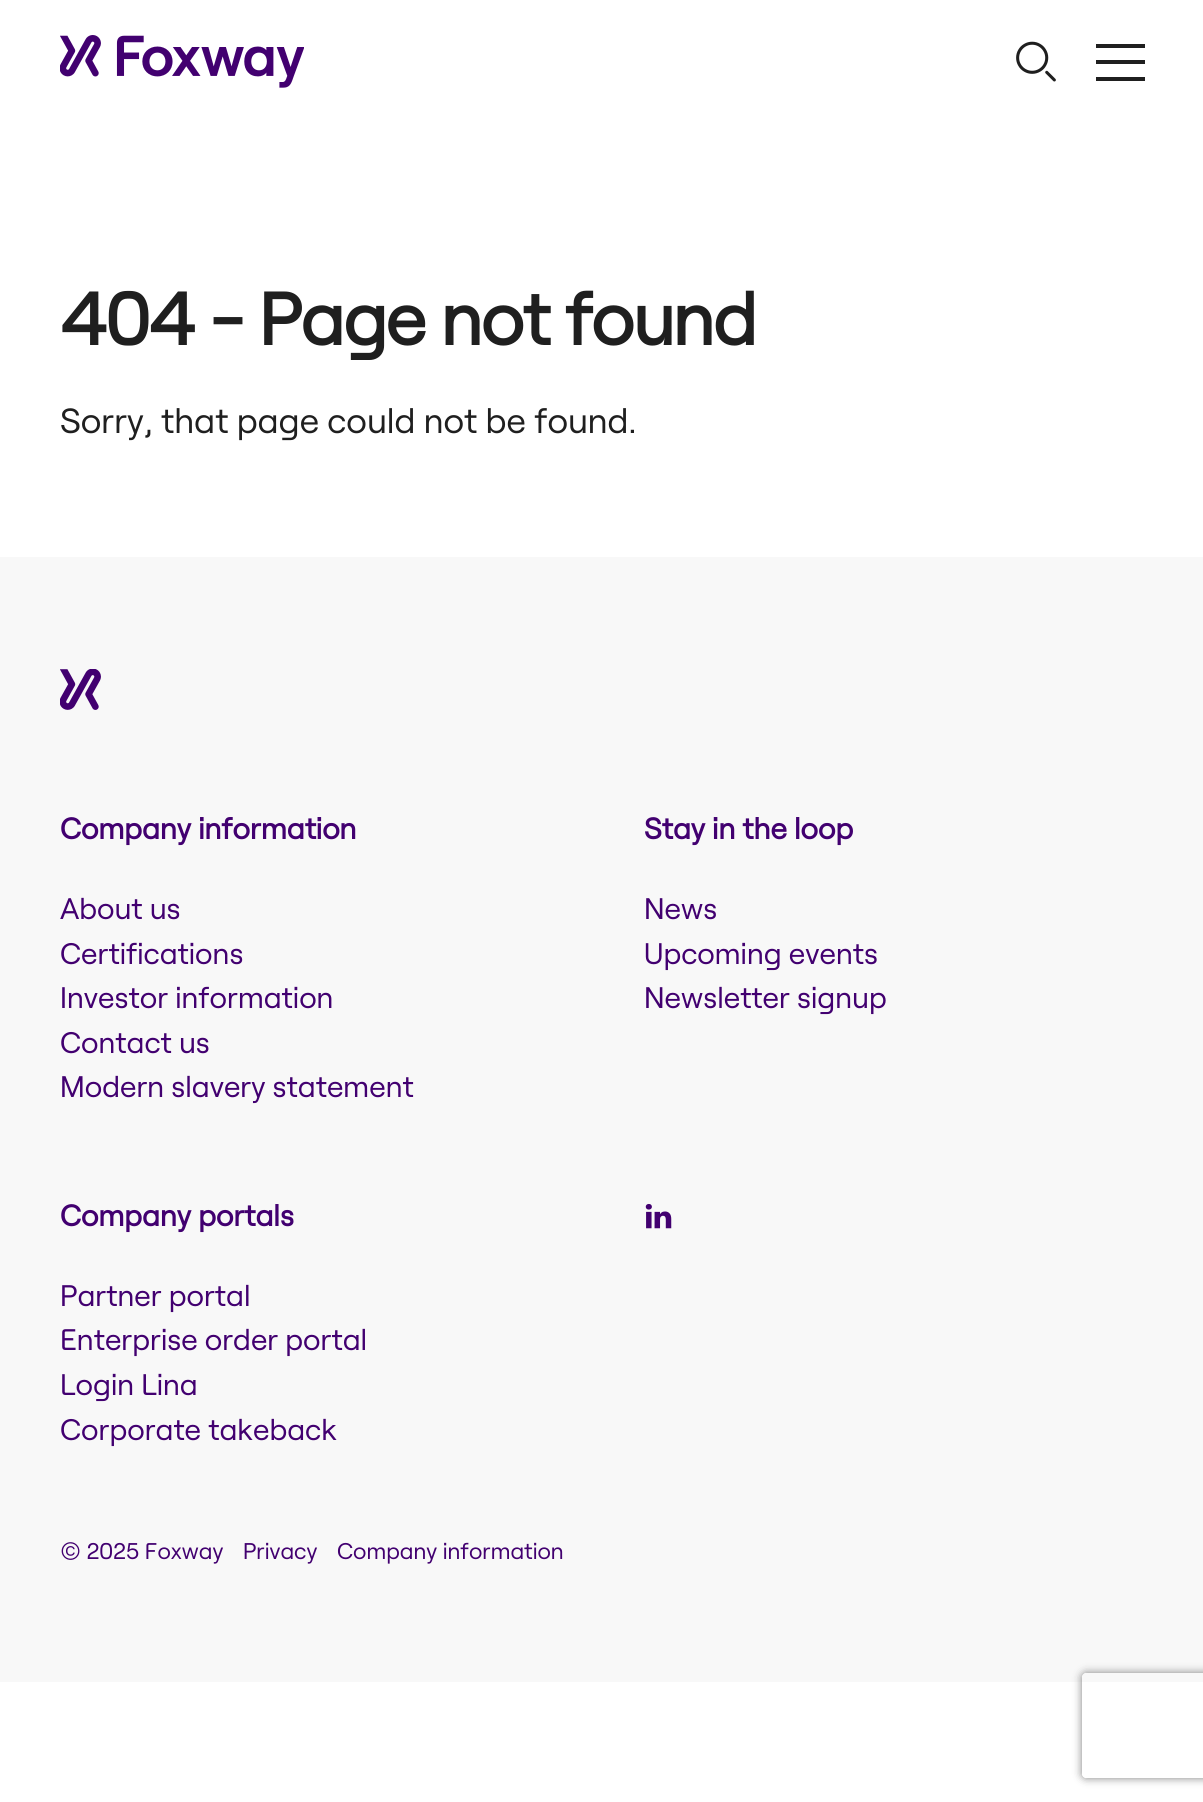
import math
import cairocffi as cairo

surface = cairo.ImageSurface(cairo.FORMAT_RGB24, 1203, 1802)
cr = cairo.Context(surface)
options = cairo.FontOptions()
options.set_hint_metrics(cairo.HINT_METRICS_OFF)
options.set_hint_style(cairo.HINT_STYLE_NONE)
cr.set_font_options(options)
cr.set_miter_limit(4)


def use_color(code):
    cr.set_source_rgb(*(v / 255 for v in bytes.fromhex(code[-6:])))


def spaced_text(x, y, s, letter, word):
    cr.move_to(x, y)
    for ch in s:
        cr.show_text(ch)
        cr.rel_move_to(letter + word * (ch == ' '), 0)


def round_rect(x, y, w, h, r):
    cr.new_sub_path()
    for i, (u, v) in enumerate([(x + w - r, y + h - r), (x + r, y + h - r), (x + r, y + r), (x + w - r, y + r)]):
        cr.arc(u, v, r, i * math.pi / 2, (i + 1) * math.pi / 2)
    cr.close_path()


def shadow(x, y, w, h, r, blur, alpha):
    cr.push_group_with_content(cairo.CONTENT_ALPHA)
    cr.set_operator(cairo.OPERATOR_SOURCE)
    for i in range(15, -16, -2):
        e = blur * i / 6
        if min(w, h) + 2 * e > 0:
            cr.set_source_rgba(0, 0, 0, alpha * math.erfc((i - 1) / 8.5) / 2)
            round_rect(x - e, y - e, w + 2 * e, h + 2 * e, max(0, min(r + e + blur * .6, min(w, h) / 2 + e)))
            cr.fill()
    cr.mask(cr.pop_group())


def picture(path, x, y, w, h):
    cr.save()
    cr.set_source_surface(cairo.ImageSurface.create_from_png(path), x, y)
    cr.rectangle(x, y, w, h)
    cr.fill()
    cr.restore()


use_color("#ffffff")
cr.paint()
picture("img1.png", 60, 35, 244, 53)
picture("img2.png", 1016, 41, 40, 41)
use_color("#1f1f1f")
cr.rectangle(1096, 60, 49, 4)
cr.fill()
cr.rectangle(1096, 44, 49, 4)
cr.fill()
cr.rectangle(1096, 77, 49, 4)
cr.fill()
cr.select_font_face("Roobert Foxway", cairo.FONT_SLANT_NORMAL, cairo.FONT_WEIGHT_BOLD)
cr.set_font_size(73.5)
spaced_text(60, 345, "404 - Page not found", -1.5, 0)
cr.select_font_face("Roobert Foxway")
cr.set_font_size(35)
cr.move_to(60, 433)
cr.show_text("Sorry, that page could not be found.")
use_color("#f8f8f8")
cr.rectangle(0, 557, 1203, 1125)
cr.fill()
picture("img3.png", 60, 669, 41, 41)
cr.select_font_face("Roobert Foxway", cairo.FONT_SLANT_NORMAL, cairo.FONT_WEIGHT_BOLD)
cr.set_font_size(29.75)
use_color("#420070")
cr.move_to(60, 839)
cr.show_text("Company information")
cr.select_font_face("Roobert Foxway")
cr.move_to(60, 919)
cr.show_text("About us")
cr.move_to(60, 964)
cr.show_text("Certifications")
cr.move_to(60, 1008)
cr.show_text("Investor information")
cr.move_to(60, 1053)
cr.show_text("Contact us")
cr.move_to(60, 1097)
cr.show_text("Modern slavery statement")
cr.select_font_face("Roobert Foxway", cairo.FONT_SLANT_NORMAL, cairo.FONT_WEIGHT_BOLD)
cr.move_to(644, 839)
cr.show_text("Stay in the loop")
cr.select_font_face("Roobert Foxway")
cr.move_to(644, 919)
cr.show_text("News")
cr.move_to(644, 964)
cr.show_text("Upcoming events")
cr.move_to(644, 1008)
cr.show_text("Newsletter signup")
cr.select_font_face("Roobert Foxway", cairo.FONT_SLANT_NORMAL, cairo.FONT_WEIGHT_BOLD)
cr.move_to(60, 1226)
cr.show_text("Company portals")
cr.select_font_face("Roobert Foxway")
cr.move_to(60, 1306)
cr.show_text("Partner portal")
cr.move_to(60, 1350)
cr.show_text("Enterprise order portal")
cr.move_to(60, 1395)
cr.show_text("Login Lina")
cr.move_to(60, 1440)
cr.show_text("Corporate takeback")
picture("img4.png", 645, 1203, 27, 26)
cr.set_font_size(22.75)
cr.move_to(60, 1559)
cr.show_text("© 2025 Foxway")
cr.move_to(243, 1559)
cr.show_text("Privacy")
cr.move_to(337, 1559)
cr.show_text("Company information")
cr.save()
cr.set_fill_rule(cairo.FILL_RULE_EVEN_ODD)
cr.new_path()
cr.move_to(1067, 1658)
cr.line_to(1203, 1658)
cr.line_to(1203, 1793)
cr.line_to(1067, 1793)
cr.close_path()
cr.move_to(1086, 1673)
cr.line_to(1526, 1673)
cr.curve_to(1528, 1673, 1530, 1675, 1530, 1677)
cr.line_to(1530, 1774)
cr.curve_to(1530, 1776, 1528, 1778, 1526, 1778)
cr.line_to(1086, 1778)
cr.curve_to(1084, 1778, 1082, 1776, 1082, 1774)
cr.line_to(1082, 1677)
cr.curve_to(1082, 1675, 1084, 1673, 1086, 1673)
cr.close_path()
cr.clip()
use_color("#808080")
shadow(1082, 1673, 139, 105, 4, 4.5, 1)
cr.restore()
surface.write_to_png("result.png")
